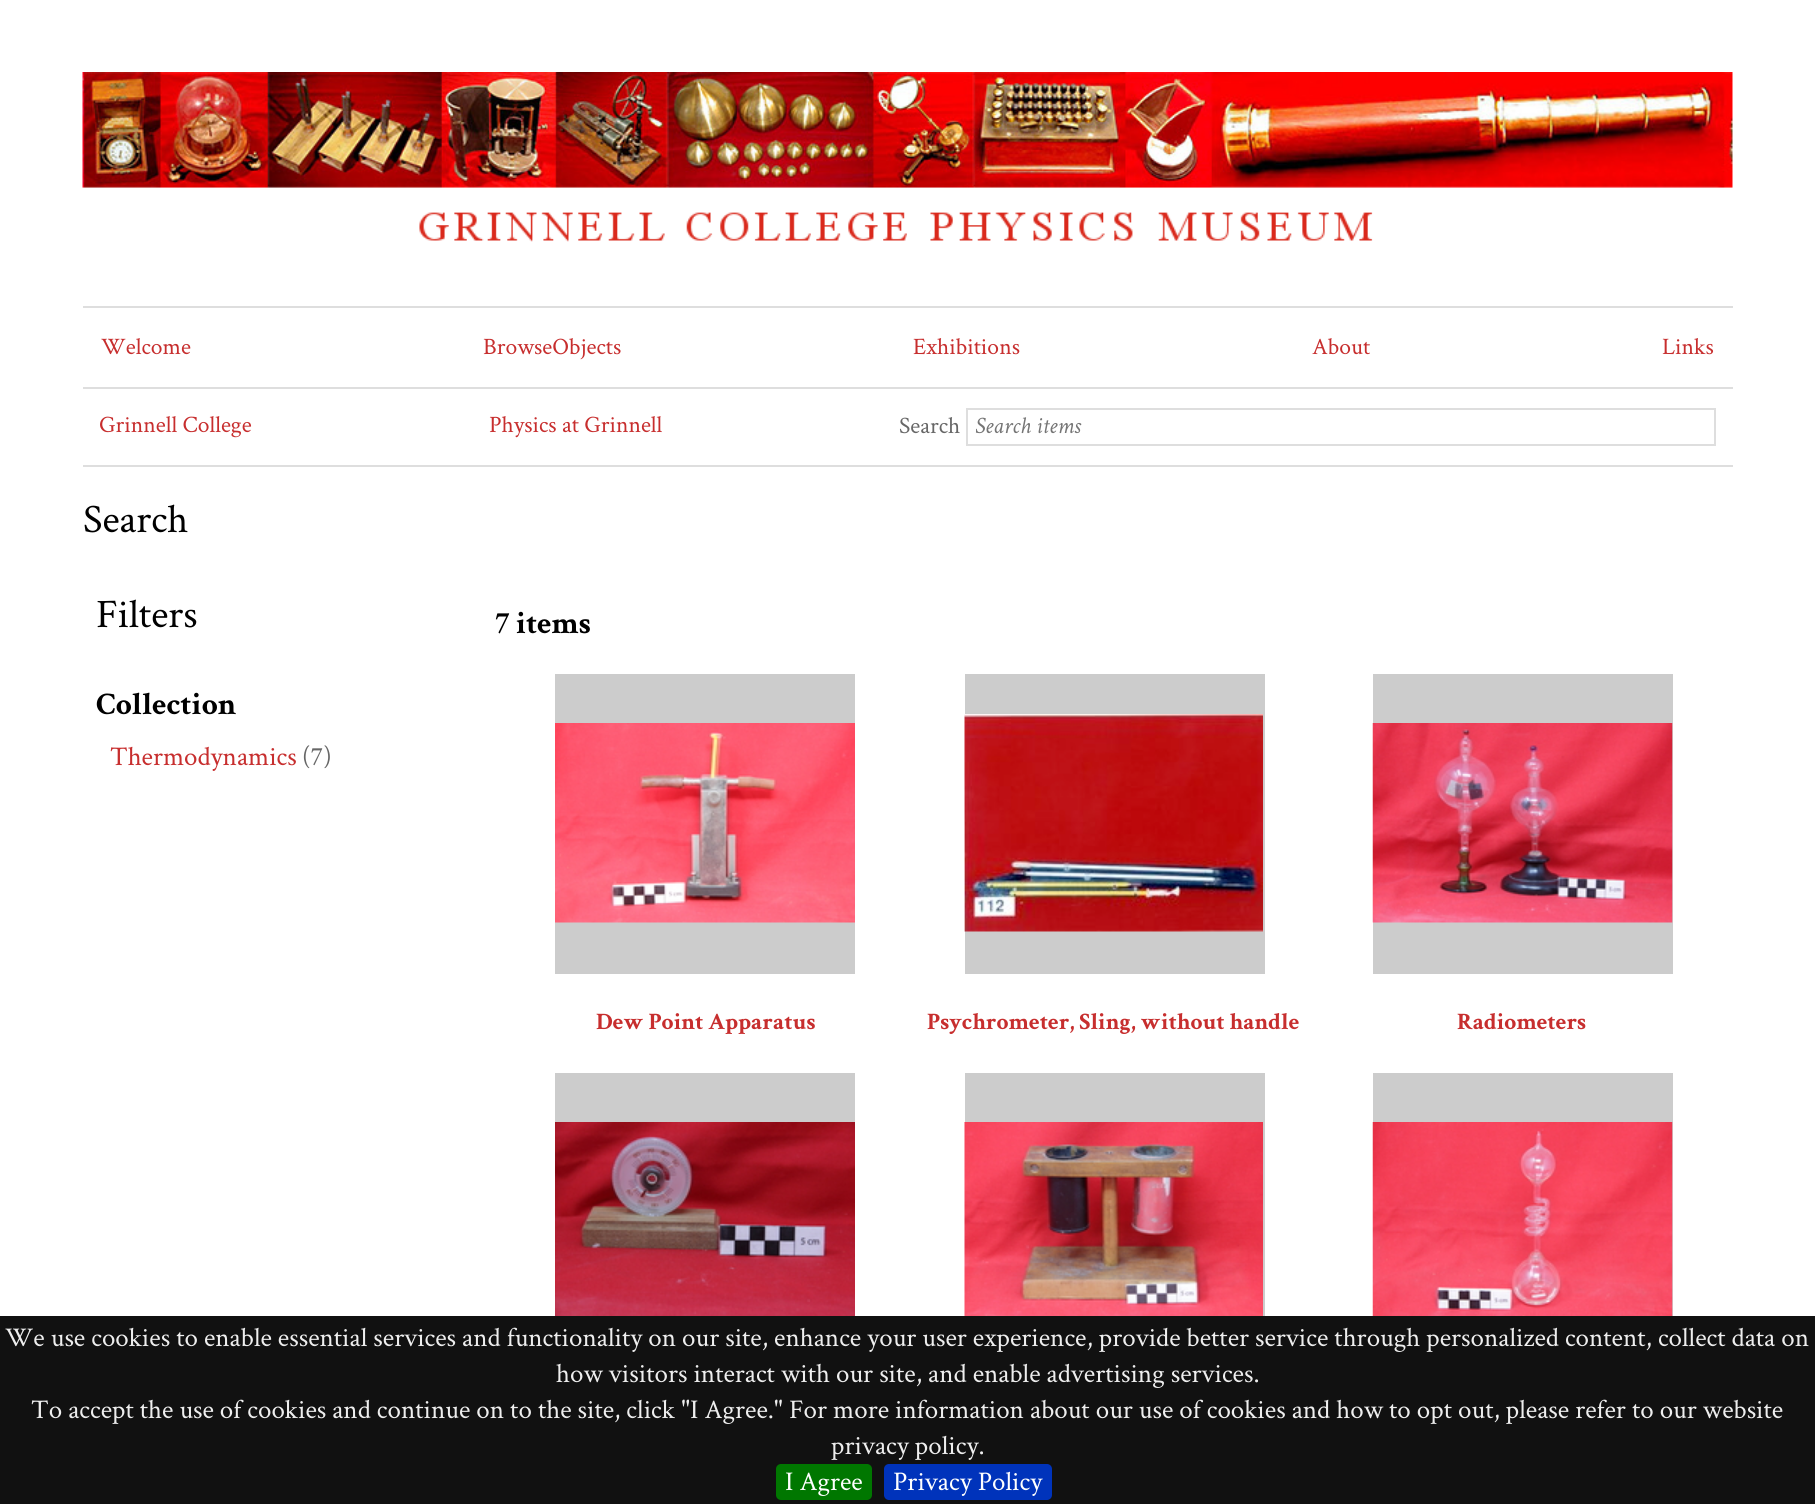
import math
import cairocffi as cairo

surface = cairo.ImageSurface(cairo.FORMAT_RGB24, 1815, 1504)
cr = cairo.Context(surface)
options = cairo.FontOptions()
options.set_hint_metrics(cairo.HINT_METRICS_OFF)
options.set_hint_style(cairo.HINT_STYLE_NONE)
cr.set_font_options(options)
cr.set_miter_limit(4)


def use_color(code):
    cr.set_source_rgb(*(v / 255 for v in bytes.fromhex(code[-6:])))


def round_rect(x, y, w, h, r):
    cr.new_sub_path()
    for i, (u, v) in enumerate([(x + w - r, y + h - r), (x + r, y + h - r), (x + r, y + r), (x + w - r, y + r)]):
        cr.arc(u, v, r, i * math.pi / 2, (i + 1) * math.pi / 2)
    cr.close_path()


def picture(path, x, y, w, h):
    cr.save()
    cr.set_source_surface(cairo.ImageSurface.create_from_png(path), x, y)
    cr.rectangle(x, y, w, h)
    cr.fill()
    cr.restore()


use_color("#ffffff")
cr.paint()
picture("img1.png", 82, 72, 1651, 170)
use_color("#dedede")
cr.rectangle(83, 306, 1650, 2)
cr.fill()
cr.rectangle(83, 387, 1650, 2)
cr.fill()
cr.select_font_face("Crimson Text")
cr.set_font_size(23.6)
use_color("#c72e2e")
cr.move_to(101, 354)
cr.show_text("Welcome")
cr.move_to(483, 354)
cr.show_text("BrowseObjects")
cr.move_to(913, 354)
cr.show_text("Exhibitions")
cr.move_to(1312, 354)
cr.show_text("About")
cr.move_to(1662, 354)
cr.show_text("Links")
use_color("#dedede")
cr.rectangle(83, 465, 1650, 2)
cr.fill()
use_color("#c72e2e")
cr.move_to(99, 432)
cr.show_text("Grinnell College")
cr.move_to(489, 432)
cr.show_text("Physics at Grinnell")
use_color("#676767")
cr.move_to(899, 433)
cr.show_text("Search")
cr.rectangle(967, 409, 748, 36)
use_color("#dedede")
cr.stroke()
cr.select_font_face("Crimson Text", cairo.FONT_SLANT_ITALIC)
use_color("#757575")
cr.move_to(975, 433)
cr.show_text("Search items")
cr.select_font_face("Crimson Text")
cr.set_font_size(40.5)
use_color("#000000")
cr.move_to(83, 532)
cr.show_text("Search")
cr.move_to(96, 627)
cr.show_text("Filters")
cr.select_font_face("Crimson Text", cairo.FONT_SLANT_NORMAL, cairo.FONT_WEIGHT_BOLD)
cr.set_font_size(31.5)
cr.move_to(96, 714)
cr.show_text("Collection")
cr.select_font_face("Crimson Text")
cr.set_font_size(27)
use_color("#c72e2e")
cr.move_to(110, 765)
cr.show_text("Thermodynamics")
use_color("#676767")
cr.move_to(302, 765)
cr.show_text("(7)")
cr.select_font_face("Crimson Text", cairo.FONT_SLANT_NORMAL, cairo.FONT_WEIGHT_BOLD)
cr.set_font_size(31.5)
use_color("#000000")
cr.move_to(495, 633)
cr.show_text("7 items")
use_color("#cccccc")
cr.rectangle(555, 674, 300, 300)
cr.fill()
picture("img2.png", 555, 723, 300, 200)
cr.set_font_size(23.6)
use_color("#c72e2e")
cr.move_to(596, 1029)
cr.show_text("Dew Point Apparatus")
use_color("#cccccc")
cr.rectangle(965, 674, 300, 300)
cr.fill()
picture("img3.png", 964, 714, 299, 218)
use_color("#c72e2e")
cr.move_to(927, 1029)
cr.show_text("Psychrometer, Sling, without handle")
use_color("#cccccc")
cr.rectangle(1373, 674, 300, 300)
cr.fill()
picture("img4.png", 1372, 723, 301, 200)
use_color("#c72e2e")
cr.move_to(1457, 1029)
cr.show_text("Radiometers")
use_color("#cccccc")
cr.rectangle(555, 1073, 300, 49)
cr.fill()
picture("img5.png", 555, 1122, 300, 194)
cr.rectangle(965, 1073, 300, 243)
cr.fill()
picture("img6.png", 964, 1122, 299, 194)
cr.rectangle(1373, 1073, 300, 243)
cr.fill()
picture("img7.png", 1372, 1122, 301, 194)
use_color("#111111")
cr.rectangle(0, 1316, 1815, 188)
cr.fill()
cr.select_font_face("Crimson Text")
cr.set_font_size(27)
use_color("#eeeeee")
cr.move_to(5, 1346)
cr.show_text("We use cookies to enable essential services and functionality on our site, enhance your user experience, provide better service through personalized content, collect data on")
cr.move_to(556, 1382)
cr.show_text("how visitors interact with our site, and enable advertising services.")
cr.move_to(31, 1418)
cr.show_text("To accept the use of cookies and continue on to the site, click \"I Agree.\" For more information about our use of cookies and how to opt out, please refer to our website")
cr.move_to(831, 1454)
cr.show_text("privacy policy.")
use_color("#007700")
round_rect(776, 1464, 96, 36, 5)
cr.fill()
use_color("#ffffff")
cr.move_to(785, 1490)
cr.show_text("I Agree")
use_color("#0033bb")
round_rect(884, 1464, 168, 36, 5)
cr.fill()
use_color("#ffffff")
cr.move_to(893, 1490)
cr.show_text("Privacy Policy")
surface.write_to_png("result.png")
